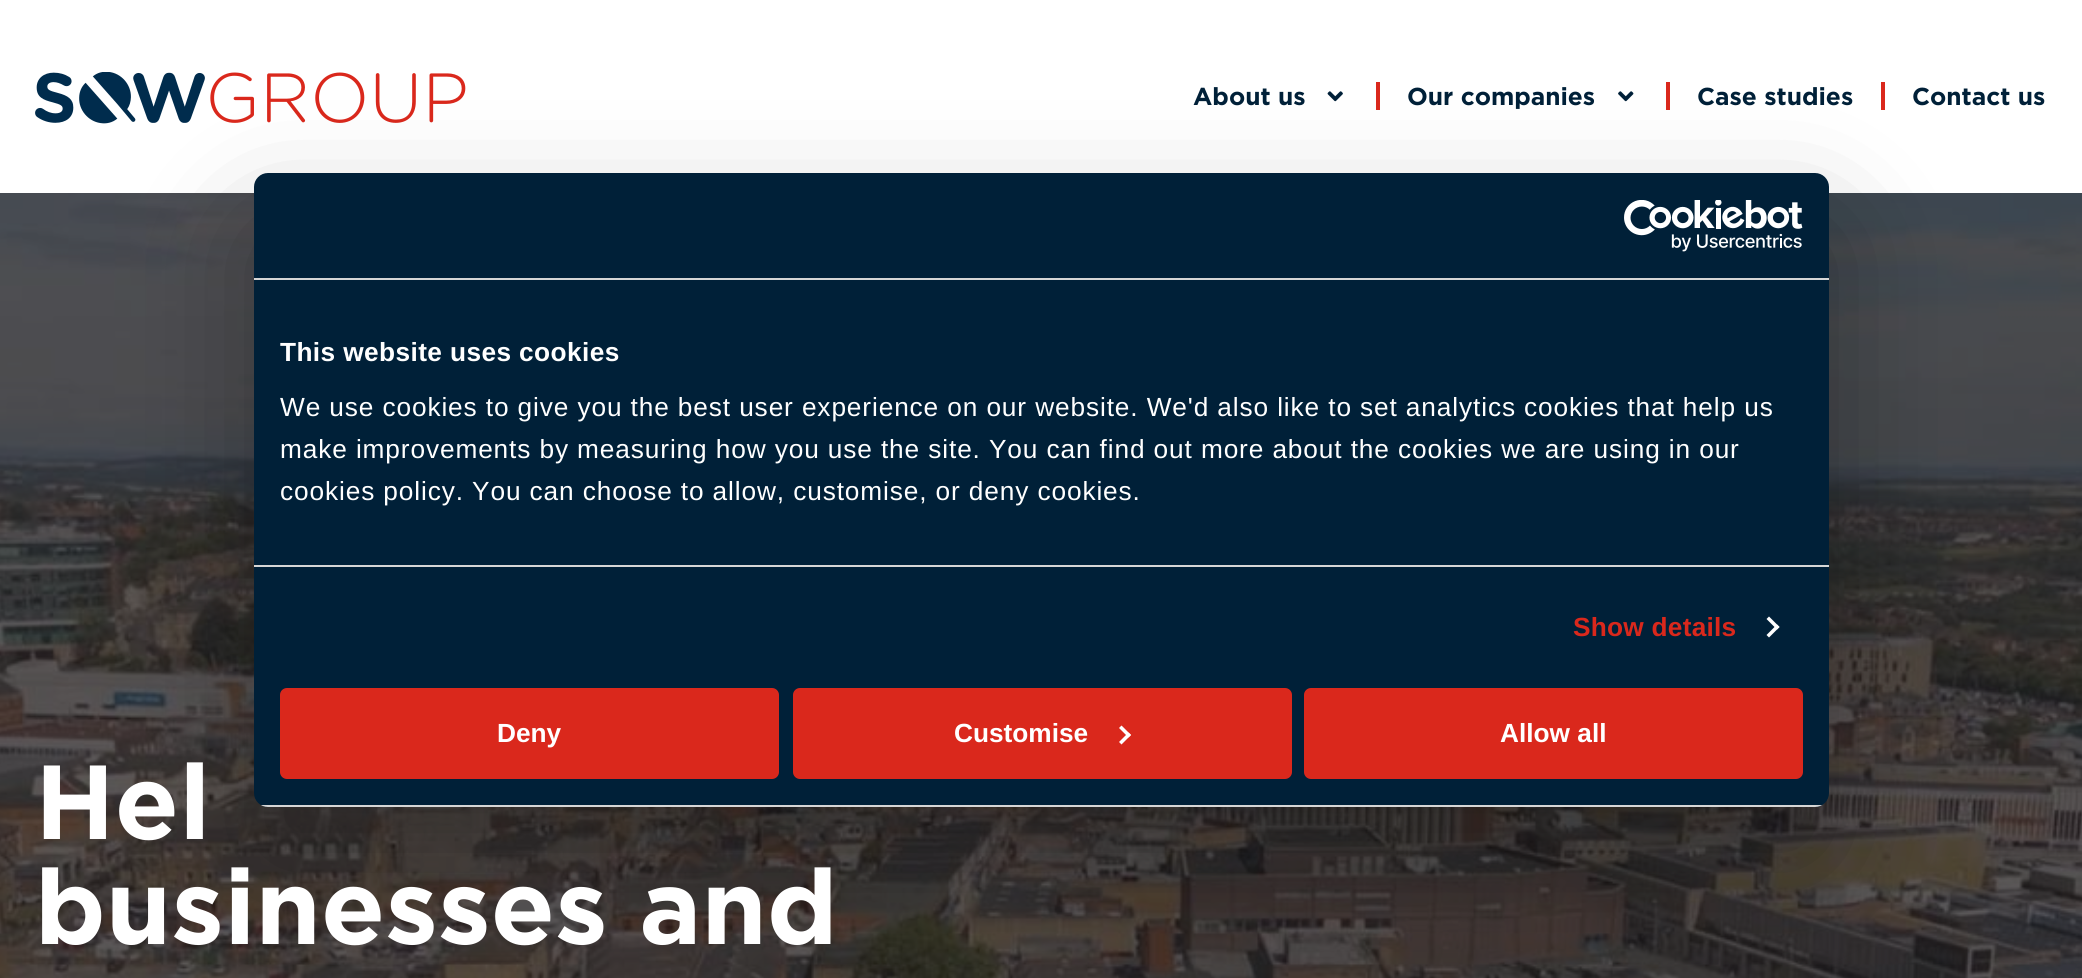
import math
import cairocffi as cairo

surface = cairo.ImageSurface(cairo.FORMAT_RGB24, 2082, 978)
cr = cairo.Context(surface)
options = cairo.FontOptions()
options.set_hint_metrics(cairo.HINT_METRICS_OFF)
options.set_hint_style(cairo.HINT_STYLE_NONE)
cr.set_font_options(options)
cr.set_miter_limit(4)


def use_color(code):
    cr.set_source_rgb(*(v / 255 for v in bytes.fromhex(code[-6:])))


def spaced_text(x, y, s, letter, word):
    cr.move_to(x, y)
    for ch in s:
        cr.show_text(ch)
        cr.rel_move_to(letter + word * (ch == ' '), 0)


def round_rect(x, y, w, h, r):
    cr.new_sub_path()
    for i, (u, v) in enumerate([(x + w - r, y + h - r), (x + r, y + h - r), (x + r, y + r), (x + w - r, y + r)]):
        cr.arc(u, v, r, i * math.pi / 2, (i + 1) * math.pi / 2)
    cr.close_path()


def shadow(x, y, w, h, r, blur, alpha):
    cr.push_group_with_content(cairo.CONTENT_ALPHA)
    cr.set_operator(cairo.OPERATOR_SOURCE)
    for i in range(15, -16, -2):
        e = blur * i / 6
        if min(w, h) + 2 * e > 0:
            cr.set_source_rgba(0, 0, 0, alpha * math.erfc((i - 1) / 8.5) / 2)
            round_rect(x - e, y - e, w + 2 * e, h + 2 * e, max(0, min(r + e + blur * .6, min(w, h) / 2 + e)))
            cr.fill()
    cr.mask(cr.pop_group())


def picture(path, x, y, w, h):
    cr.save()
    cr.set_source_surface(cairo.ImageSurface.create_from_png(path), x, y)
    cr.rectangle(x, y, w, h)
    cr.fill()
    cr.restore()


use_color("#ffffff")
cr.paint()
picture("img1.png", 35, 72, 431, 52)
cr.select_font_face("Gotham", cairo.FONT_SLANT_NORMAL, cairo.FONT_WEIGHT_BOLD)
cr.set_font_size(24.5)
use_color("#002038")
cr.move_to(1193, 105)
cr.show_text("About us")
picture("img2.png", 1327, 91, 16, 11)
use_color("#da281c")
cr.rectangle(1376, 82, 4, 28)
cr.fill()
use_color("#002038")
cr.move_to(1407, 105)
cr.show_text("Our companies")
picture("img3.png", 1618, 91, 16, 11)
use_color("#da281c")
cr.rectangle(1666, 82, 4, 28)
cr.fill()
use_color("#002038")
cr.move_to(1697, 105)
cr.show_text("Case studies")
use_color("#da281c")
cr.rectangle(1881, 82, 4, 28)
cr.fill()
use_color("#002038")
cr.move_to(1912, 105)
cr.show_text("Contact us")
picture("img5.png", 0, 193, 2082, 785)
use_color("#000000")
shadow(254, 229, 1575, 634, 14, 59.5, 0.3)
use_color("#002038")
round_rect(254, 173, 1575, 634, 14)
cr.fill()
use_color("#d6d6d6")
cr.rectangle(254, 278, 1575, 2)
cr.fill()
picture("img4.png", 1624, 200, 179, 52)
cr.rectangle(254, 565, 1575, 2)
cr.fill()
cr.select_font_face("Liberation Sans", cairo.FONT_SLANT_NORMAL, cairo.FONT_WEIGHT_BOLD)
cr.set_font_size(26.25)
use_color("#ffffff")
spaced_text(280, 361, "This website uses cookies", 0.4, 0)
cr.select_font_face("Liberation Sans")
spaced_text(280, 416, "We use cookies to give you the best user experience on our website. We'd also like to set analytics cookies that help us", 0.88, 0)
spaced_text(280, 458, "make improvements by measuring how you use the site. You can find out more about the cookies we are using in our", 0.88, 0)
spaced_text(280, 500, "cookies policy. You can choose to allow, customise, or deny cookies.", 0.88, 0)
cr.select_font_face("Liberation Sans", cairo.FONT_SLANT_NORMAL, cairo.FONT_WEIGHT_BOLD)
use_color("#da281c")
spaced_text(1573, 636, "Show details", 0.25, 0)
use_color("#ffffff")
cr.new_path()
cr.move_to(1769, 616.5)
cr.line_to(1779.5, 627)
cr.line_to(1777, 629.5)
cr.line_to(1766.5, 619)
cr.close_path()
cr.fill()
cr.new_path()
cr.move_to(1777, 624.5)
cr.line_to(1779.5, 627)
cr.line_to(1769, 637.5)
cr.line_to(1766.5, 635)
cr.close_path()
cr.fill()
cr.save()
round_rect(254, 173, 1575, 634, 14)
cr.clip()
use_color("#d6d6d6")
cr.rectangle(254, 805, 1575, 2)
cr.fill()
cr.restore()
use_color("#da281c")
round_rect(282, 690, 495, 87, 5)
cr.fill_preserve()
cr.set_line_width(4)
cr.stroke()
use_color("#ffffff")
cr.move_to(497, 742)
cr.show_text("Deny")
use_color("#da281c")
round_rect(795, 690, 495, 87, 5)
cr.fill_preserve()
cr.stroke()
use_color("#ffffff")
cr.move_to(954, 742)
cr.show_text("Customise")
cr.new_path()
cr.move_to(1121.5, 725.5)
cr.line_to(1131, 735)
cr.line_to(1128.5, 737.5)
cr.line_to(1119, 728)
cr.close_path()
cr.fill()
cr.new_path()
cr.move_to(1128.5, 732.5)
cr.line_to(1131, 735)
cr.line_to(1121.5, 744.5)
cr.line_to(1119, 742)
cr.close_path()
cr.fill()
use_color("#da281c")
round_rect(1306, 690, 495, 87, 5)
cr.fill_preserve()
cr.stroke()
use_color("#ffffff")
cr.move_to(1500, 742)
cr.show_text("Allow all")
cr.select_font_face("Gotham", cairo.FONT_SLANT_NORMAL, cairo.FONT_WEIGHT_BOLD)
cr.set_font_size(105)
cr.move_to(35, 839)
cr.show_text("Hel")
cr.move_to(35, 944)
cr.show_text("businesses and")
surface.write_to_png("result.png")
